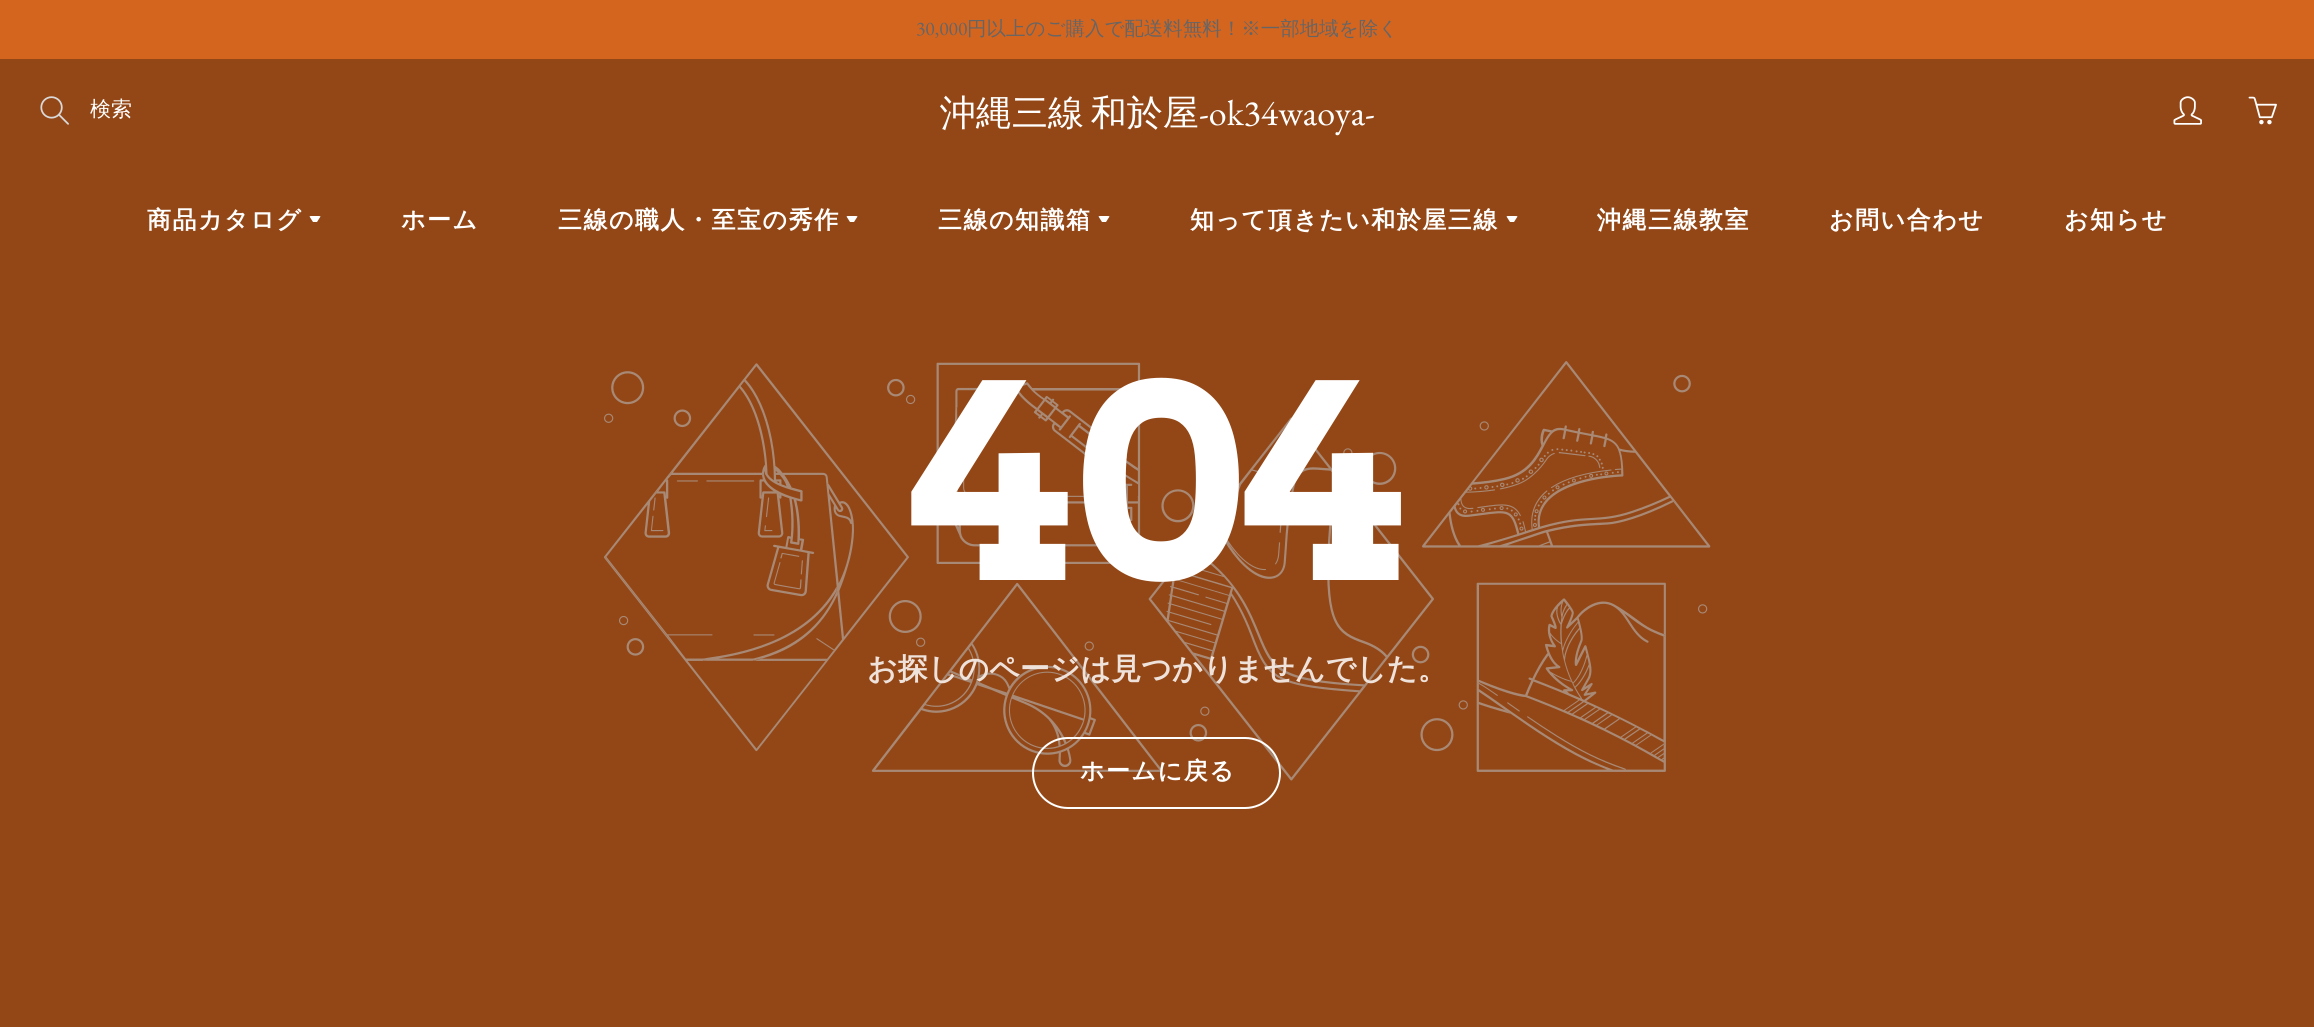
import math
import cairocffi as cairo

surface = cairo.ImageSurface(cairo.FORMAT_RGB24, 2314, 1027)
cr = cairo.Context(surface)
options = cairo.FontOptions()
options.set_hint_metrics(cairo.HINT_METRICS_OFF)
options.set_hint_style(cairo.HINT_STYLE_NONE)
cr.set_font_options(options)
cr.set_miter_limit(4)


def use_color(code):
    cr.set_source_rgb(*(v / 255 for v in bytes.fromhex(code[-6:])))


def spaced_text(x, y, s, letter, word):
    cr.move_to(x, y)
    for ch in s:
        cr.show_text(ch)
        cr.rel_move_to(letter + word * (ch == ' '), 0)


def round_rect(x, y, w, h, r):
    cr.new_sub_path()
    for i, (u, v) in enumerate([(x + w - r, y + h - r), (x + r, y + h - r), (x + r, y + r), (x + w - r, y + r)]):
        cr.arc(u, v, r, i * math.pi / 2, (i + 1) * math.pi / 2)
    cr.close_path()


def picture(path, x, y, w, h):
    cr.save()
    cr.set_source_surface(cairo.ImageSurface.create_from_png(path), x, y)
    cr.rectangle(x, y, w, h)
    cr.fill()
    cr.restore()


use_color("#944716")
cr.paint()
use_color("#d4651f")
cr.rectangle(0, 0, 2314, 59)
cr.fill()
cr.select_font_face("EB Garamond")
cr.set_font_size(19.5)
use_color("#666565")
cr.move_to(916, 35)
cr.show_text("30,000")
cr.select_font_face("WenQuanYi Zen Hei Medium")
cr.move_to(967, 35)
cr.show_text("円以上のご購入で配送料無料！※一部地域を除く")
picture("img1.png", 40, 96, 29, 29)
cr.set_font_size(21)
use_color("#ffffff")
cr.move_to(90, 116)
cr.show_text("検索")
cr.set_font_size(36)
spaced_text(940, 125, "沖縄三線 和於屋", 0, -4)
cr.select_font_face("EB Garamond")
cr.move_to(1199, 125)
cr.show_text("-ok34waoya-")
picture("img2.png", 2173, 96, 29, 29)
picture("img3.png", 2248, 96, 29, 29)
cr.select_font_face("WenQuanYi Zen Hei", cairo.FONT_SLANT_NORMAL, cairo.FONT_WEIGHT_BOLD)
cr.set_font_size(24)
spaced_text(147, 228, "商品カタログ", 1.5, 0)
cr.new_path()
cr.move_to(310.5, 216)
cr.line_to(309.5, 216.5)
cr.line_to(313, 222)
cr.line_to(317, 222)
cr.line_to(320.5, 216.5)
cr.curve_to(320, 216, 319.5, 216, 318, 216)
cr.close_path()
cr.fill()
spaced_text(401, 228, "ホーム", 1.5, 0)
spaced_text(558, 228, "三線の職人・至宝の秀作", 1.5, 0)
cr.new_path()
cr.move_to(847.5, 216)
cr.line_to(846.5, 216.5)
cr.line_to(850, 222)
cr.line_to(854, 222)
cr.line_to(857.5, 216.5)
cr.curve_to(857, 216, 856.5, 216, 855, 216)
cr.close_path()
cr.fill()
spaced_text(938, 228, "三線の知識箱", 1.5, 0)
cr.new_path()
cr.move_to(1099.5, 216)
cr.line_to(1098.5, 216.5)
cr.line_to(1102, 222)
cr.line_to(1106, 222)
cr.line_to(1109.5, 216.5)
cr.curve_to(1109, 216, 1108.5, 216, 1107, 216)
cr.close_path()
cr.fill()
spaced_text(1190, 228, "知って頂きたい和於屋三線", 1.5, 0)
cr.new_path()
cr.move_to(1507.5, 216)
cr.line_to(1506.5, 216.5)
cr.line_to(1510, 222)
cr.line_to(1514, 222)
cr.line_to(1517.5, 216.5)
cr.curve_to(1517, 216, 1516.5, 216, 1515, 216)
cr.close_path()
cr.fill()
spaced_text(1597, 228, "沖縄三線教室", 1.5, 0)
spaced_text(1829, 228, "お問い合わせ", 1.5, 0)
spaced_text(2064, 228, "お知らせ", 1.5, 0)
picture("img4.png", 604, 361, 1107, 420)
cr.select_font_face("Arvo", cairo.FONT_SLANT_NORMAL, cairo.FONT_WEIGHT_BOLD)
cr.set_font_size(270)
cr.move_to(910, 580)
cr.show_text("404")
cr.select_font_face("WenQuanYi Zen Hei", cairo.FONT_SLANT_NORMAL, cairo.FONT_WEIGHT_BOLD)
cr.set_font_size(30)
use_color("#eee2db")
cr.move_to(867, 679)
cr.show_text("お探しのページは見つかりませんでした。")
round_rect(1033, 738, 247, 70, 35)
use_color("#ffffff")
cr.stroke()
cr.set_font_size(24)
spaced_text(1080, 779, "ホームに戻る", 1.5, 0)
surface.write_to_png("result.png")
